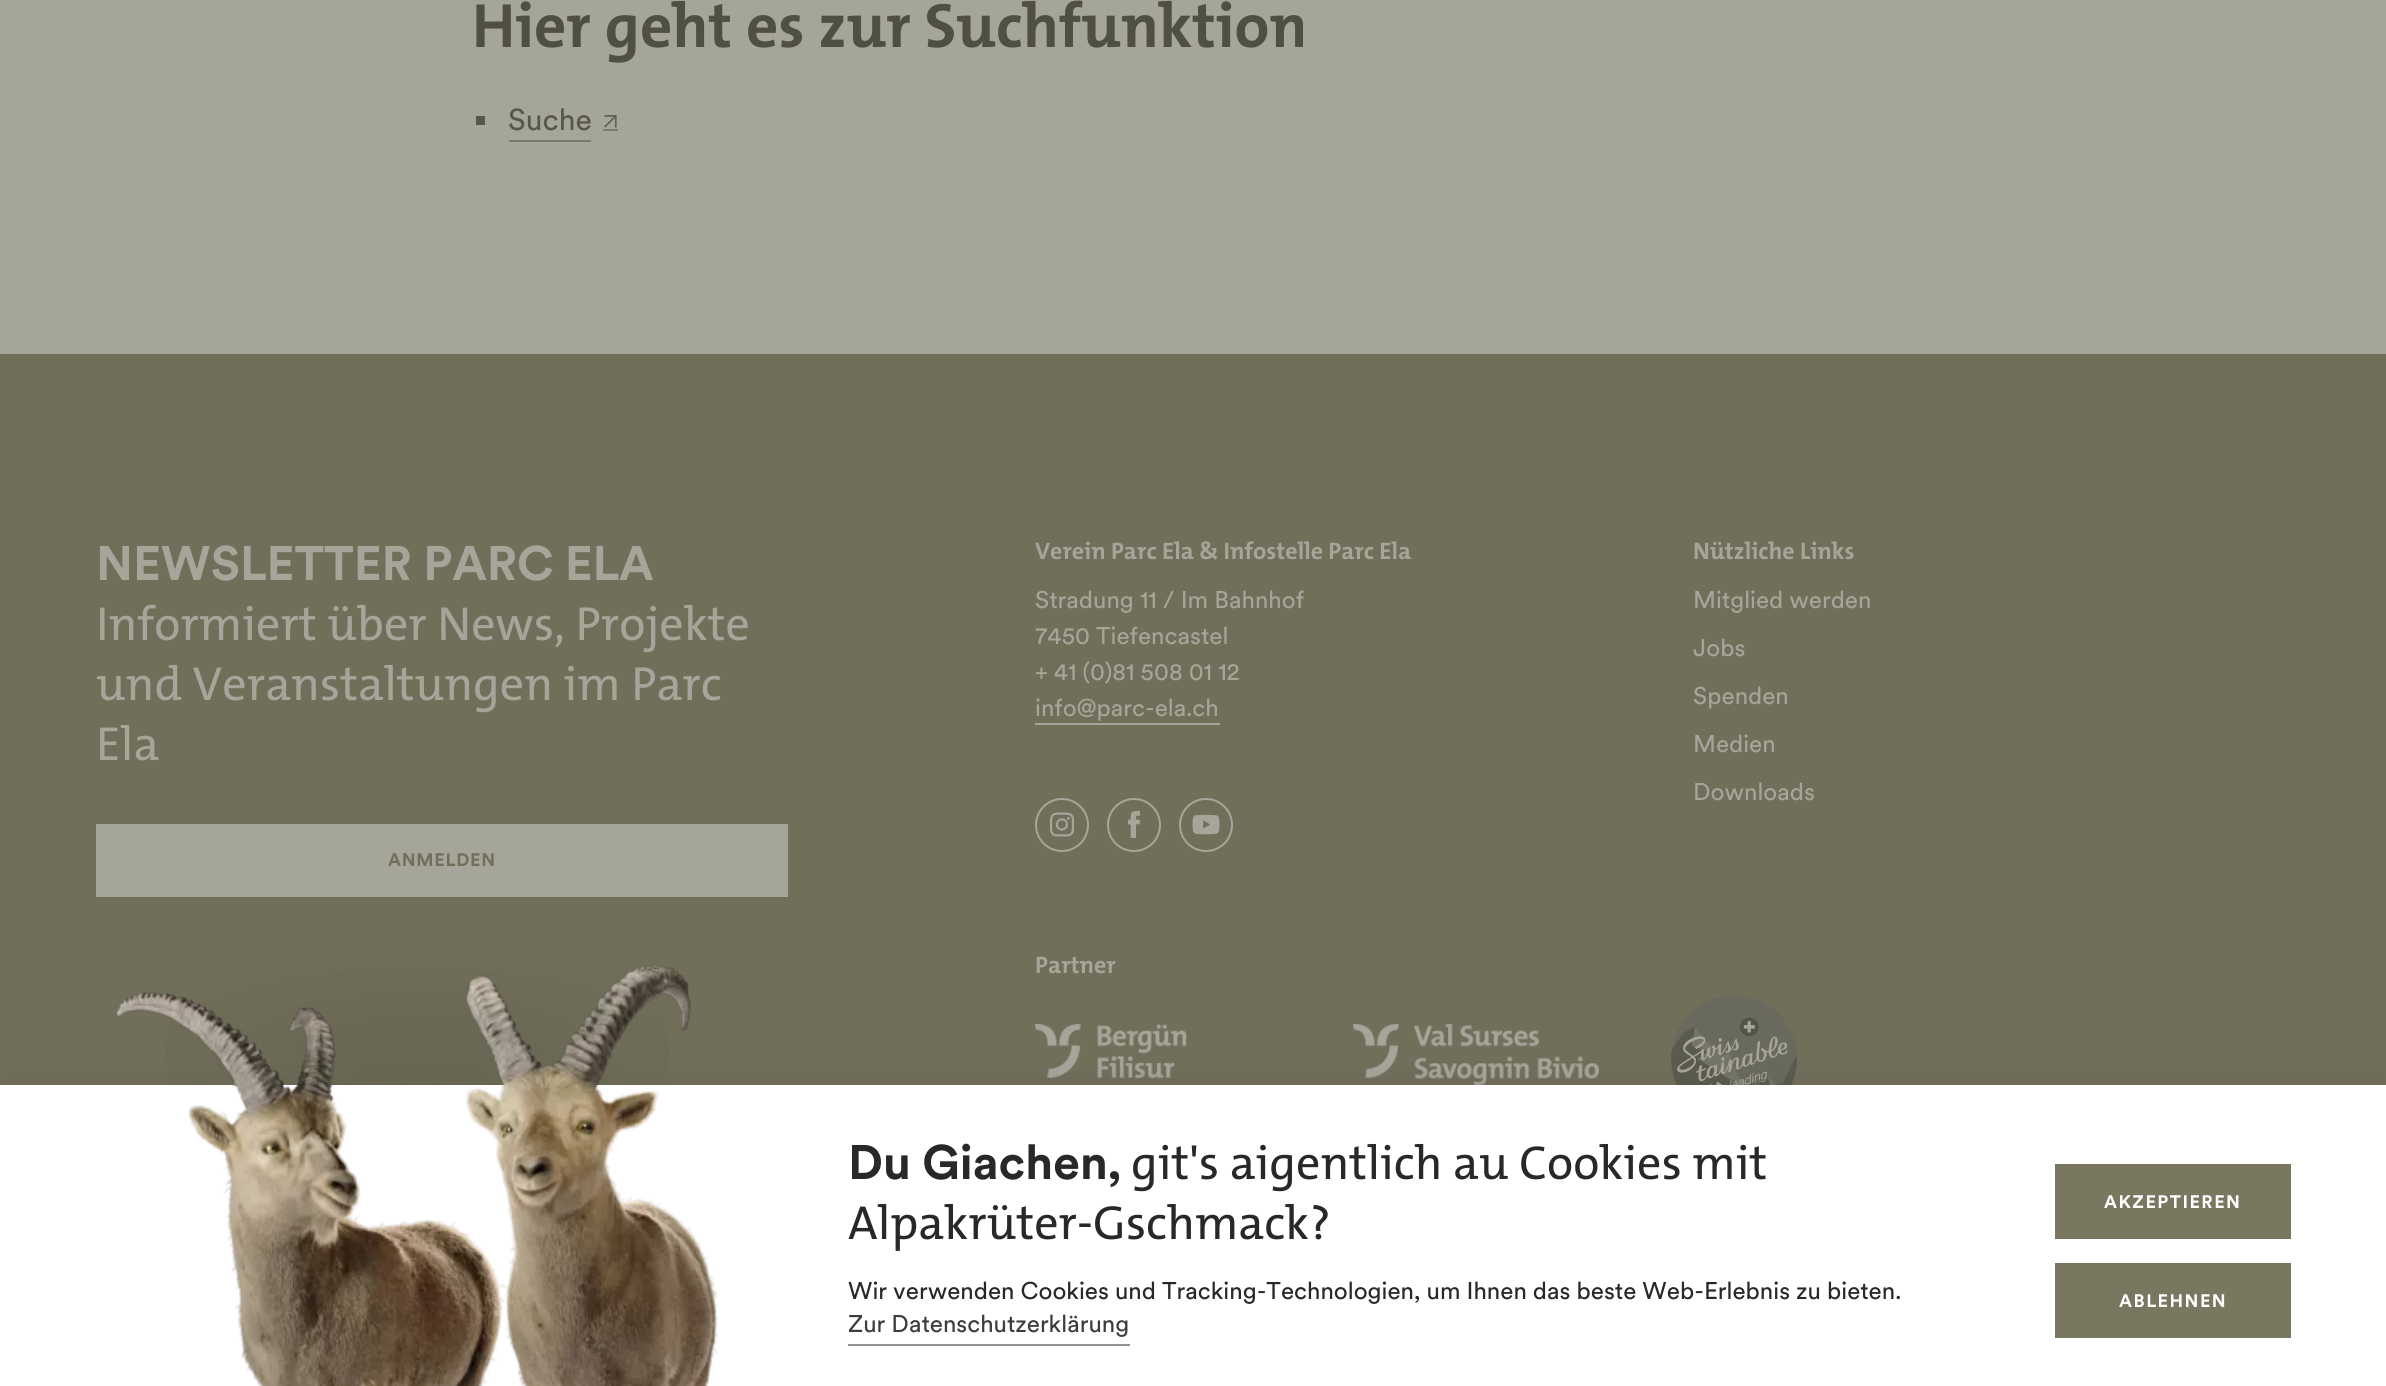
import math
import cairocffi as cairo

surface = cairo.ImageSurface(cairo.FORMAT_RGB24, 2386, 1386)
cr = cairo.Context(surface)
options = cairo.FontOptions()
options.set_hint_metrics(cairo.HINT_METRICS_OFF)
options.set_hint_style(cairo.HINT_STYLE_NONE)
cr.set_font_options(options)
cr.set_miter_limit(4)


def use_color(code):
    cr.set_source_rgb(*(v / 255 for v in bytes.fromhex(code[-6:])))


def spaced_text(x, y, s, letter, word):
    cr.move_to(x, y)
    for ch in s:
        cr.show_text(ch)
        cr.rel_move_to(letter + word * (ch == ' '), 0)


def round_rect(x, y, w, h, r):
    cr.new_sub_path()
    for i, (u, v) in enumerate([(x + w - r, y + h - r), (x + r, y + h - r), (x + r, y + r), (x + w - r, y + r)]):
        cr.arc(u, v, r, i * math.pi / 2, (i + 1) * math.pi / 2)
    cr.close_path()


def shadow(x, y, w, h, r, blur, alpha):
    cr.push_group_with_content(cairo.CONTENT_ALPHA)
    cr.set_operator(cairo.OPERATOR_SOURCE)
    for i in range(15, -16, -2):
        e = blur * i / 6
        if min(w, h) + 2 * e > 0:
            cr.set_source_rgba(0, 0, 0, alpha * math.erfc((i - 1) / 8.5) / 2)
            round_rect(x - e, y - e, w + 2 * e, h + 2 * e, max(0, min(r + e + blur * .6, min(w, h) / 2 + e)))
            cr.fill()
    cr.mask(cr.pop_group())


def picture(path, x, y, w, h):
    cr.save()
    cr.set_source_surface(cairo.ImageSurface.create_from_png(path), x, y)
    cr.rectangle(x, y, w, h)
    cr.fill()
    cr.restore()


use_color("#a6a59a")
cr.paint()
cr.select_font_face("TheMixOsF", cairo.FONT_SLANT_NORMAL, cairo.FONT_WEIGHT_BOLD)
cr.set_font_size(63)
use_color("#504f44")
cr.move_to(472, 47)
cr.show_text("Hier geht es zur Suchfunktion")
use_color("#58574c")
cr.rectangle(476, 116, 9, 9)
cr.fill()
use_color("#7b7a6e")
cr.rectangle(509, 140, 82, 2)
cr.fill()
cr.rectangle(603, 129, 15, 2)
cr.fill()
cr.select_font_face("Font")
cr.set_font_size(30)
use_color("#58574c")
cr.move_to(508, 130)
cr.show_text("Suche")
picture("img1.png", 604, 115, 13, 13)
use_color("#716f5a")
cr.rectangle(0, 354, 2386, 731)
cr.fill()
cr.select_font_face("Font", cairo.FONT_SLANT_NORMAL, cairo.FONT_WEIGHT_BOLD)
cr.set_font_size(48)
use_color("#a6a59a")
cr.move_to(96, 580)
cr.show_text("NEWSLETTER PARC ELA")
cr.select_font_face("TheMixOsF Medium")
cr.move_to(96, 640)
cr.show_text("Informiert über News, Projekte")
cr.move_to(96, 700)
cr.show_text("und Veranstaltungen im Parc")
cr.move_to(96, 760)
cr.show_text("Ela")
cr.rectangle(96, 824, 692, 73)
cr.fill()
cr.select_font_face("Font", cairo.FONT_SLANT_NORMAL, cairo.FONT_WEIGHT_BOLD)
cr.set_font_size(18)
use_color("#716f5a")
spaced_text(388, 866, "ANMELDEN", 0.75, 0)
cr.select_font_face("TheMixOsF", cairo.FONT_SLANT_NORMAL, cairo.FONT_WEIGHT_BOLD)
cr.set_font_size(24)
use_color("#a6a59a")
cr.move_to(1035, 559)
cr.show_text("Verein Parc Ela & Infostelle Parc Ela")
cr.select_font_face("Font")
cr.move_to(1035, 608)
cr.show_text("Stradung 11 / Im Bahnhof")
cr.move_to(1035, 644)
cr.show_text("7450 Tiefencastel")
cr.move_to(1035, 680)
cr.show_text("+ 41 (0)81 508 01 12")
cr.move_to(1035, 716)
cr.show_text("info@parc-ela.ch")
cr.rectangle(1035, 723, 185, 2)
cr.fill()
cr.select_font_face("TheMixOsF", cairo.FONT_SLANT_NORMAL, cairo.FONT_WEIGHT_BOLD)
cr.move_to(1693, 559)
cr.show_text("Nützliche Links")
cr.select_font_face("Font")
cr.move_to(1693, 608)
cr.show_text("Mitglied werden")
cr.move_to(1693, 656)
cr.show_text("Jobs")
cr.move_to(1693, 704)
cr.show_text("Spenden")
cr.move_to(1693, 752)
cr.show_text("Medien")
cr.move_to(1693, 800)
cr.show_text("Downloads")
cr.new_path()
cr.arc(1062, 825, 26, 0, 2 * math.pi)
cr.stroke()
picture("img2.png", 1050, 812, 25, 25)
cr.arc(1134, 825, 26, 0, 2 * math.pi)
cr.stroke()
picture("img3.png", 1128, 811, 12, 27)
cr.arc(1206, 825, 26, 0, 2 * math.pi)
cr.stroke()
picture("img4.png", 1192, 814, 28, 21)
cr.select_font_face("TheMixOsF", cairo.FONT_SLANT_NORMAL, cairo.FONT_WEIGHT_BOLD)
cr.move_to(1035, 973)
cr.show_text("Partner")
picture("img5.png", 1035, 1024, 152, 55)
picture("img6.png", 1353, 1024, 246, 61)
picture("img7.png", 1671, 995, 126, 90)
gradient = cairo.RadialGradient(0, 0, 0, 0, 0, 1)
gradient.set_matrix(cairo.Matrix(1 / 1240, 0, 0, 1 / 413, -1 * 418 / 1240, -1 * 1053 / 413))
gradient.add_color_stop_rgba(0.05, 0.29, 0.286, 0.231, 0.2)
gradient.add_color_stop_rgba(0.18, 0.29, 0.286, 0.231, 0.07)
gradient.add_color_stop_rgba(0.27, 0.29, 0.286, 0.231, 0.02)
gradient.add_color_stop_rgba(0.33, 0.29, 0.286, 0.231, 0)
cr.set_source(gradient)
cr.rectangle(166, 969, 504, 116)
cr.fill()
use_color("#282828")
shadow(0, 1085, 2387, 301, 0, 15, 0.1)
use_color("#ffffff")
cr.rectangle(0, 1085, 2386, 301)
cr.fill()
picture("img8.png", 116, 965, 603, 421)
cr.select_font_face("Font", cairo.FONT_SLANT_NORMAL, cairo.FONT_WEIGHT_BOLD)
cr.set_font_size(48)
use_color("#282828")
cr.move_to(848, 1179)
cr.show_text("Du Giachen,")
cr.select_font_face("TheMixOsF Medium")
cr.move_to(1131, 1179)
cr.show_text("git's aigentlich au Cookies mit")
cr.move_to(848, 1239)
cr.show_text("Alpakrüter-Gschmack?")
cr.select_font_face("Font")
cr.set_font_size(24)
cr.move_to(848, 1299)
cr.show_text("Wir verwenden Cookies und Tracking-Technologien, um Ihnen das beste Web-Erlebnis zu bieten.")
use_color("#3c3c3c")
cr.move_to(848, 1332)
cr.show_text("Zur Datenschutzerklärung")
use_color("#939393")
cr.rectangle(848, 1344, 282, 2)
cr.fill()
use_color("#79775f")
cr.rectangle(2055, 1164, 236, 75)
cr.fill()
cr.select_font_face("Font", cairo.FONT_SLANT_NORMAL, cairo.FONT_WEIGHT_BOLD)
cr.set_font_size(18)
use_color("#ffffff")
spaced_text(2104, 1208, "AKZEPTIEREN", 1.5, 0)
use_color("#79775f")
cr.rectangle(2055, 1263, 236, 75)
cr.fill()
use_color("#ffffff")
spaced_text(2119, 1307, "ABLEHNEN", 1.5, 0)
surface.write_to_png("result.png")
